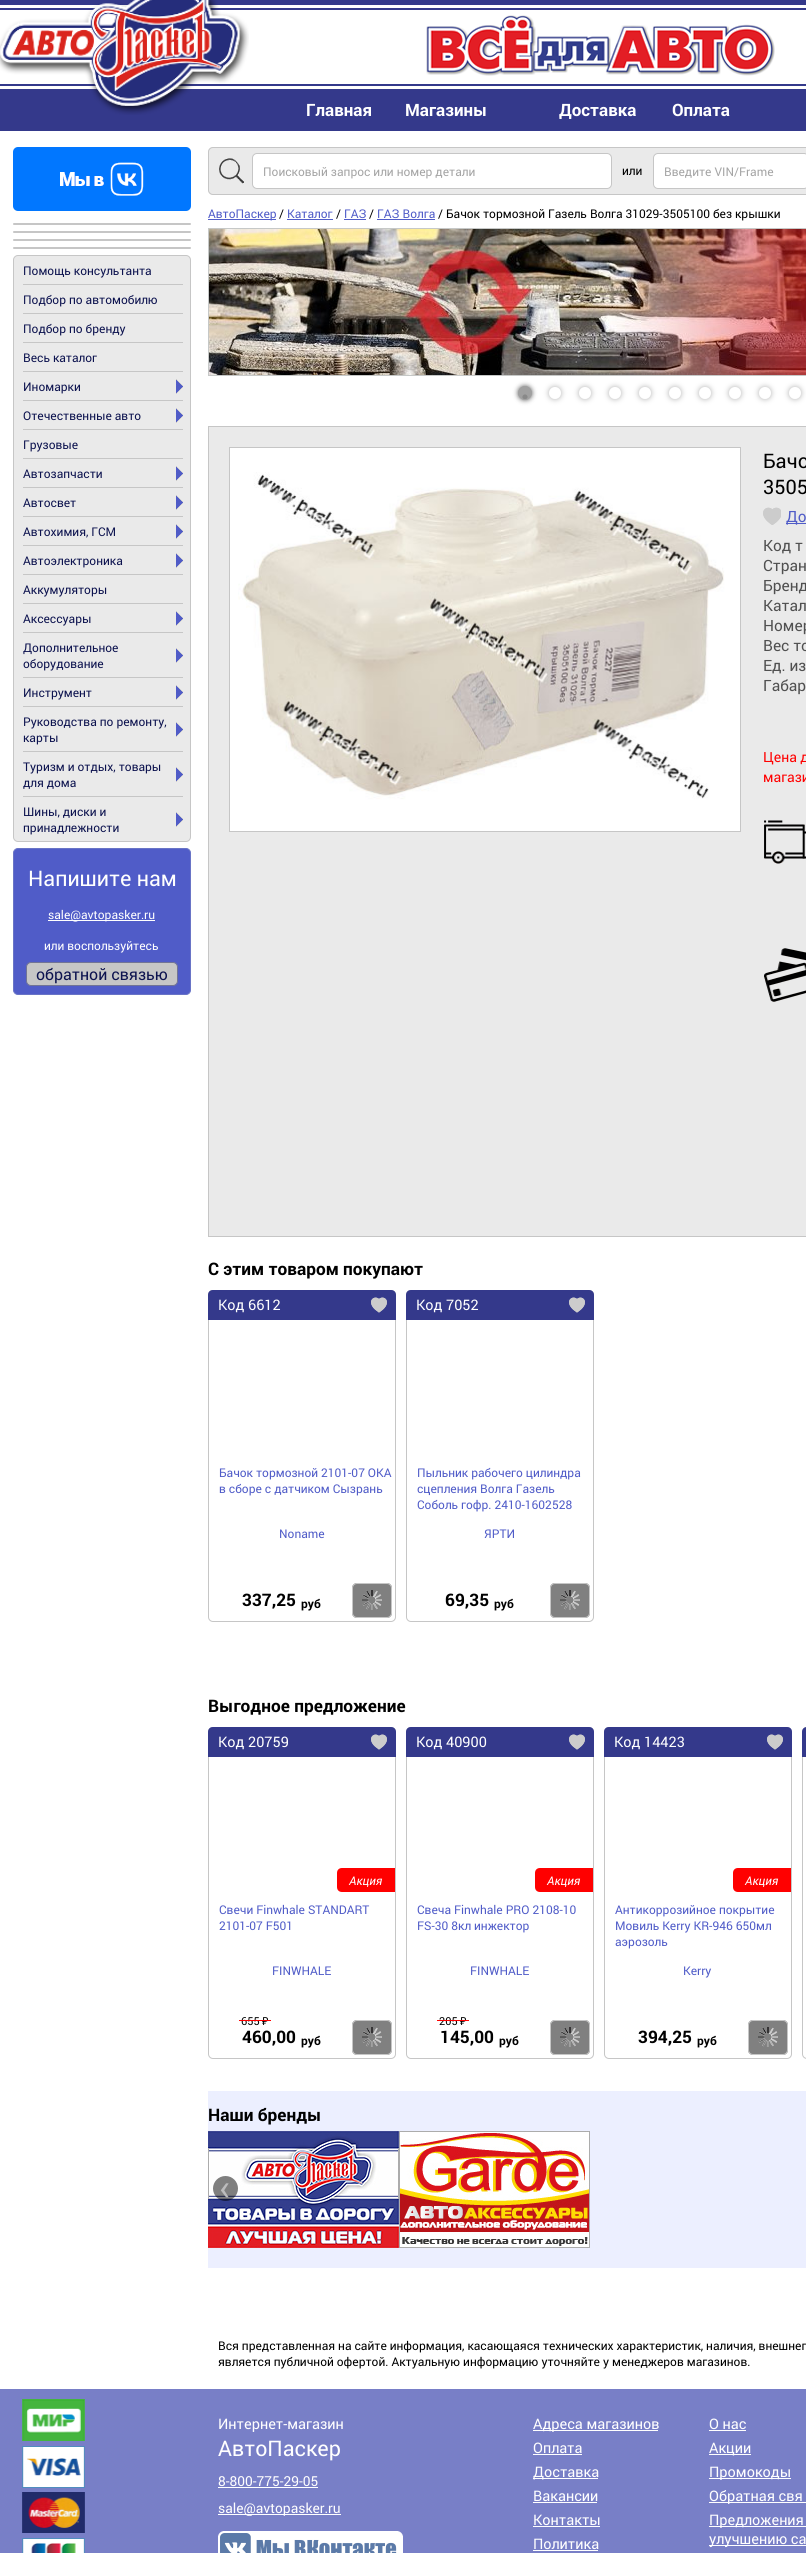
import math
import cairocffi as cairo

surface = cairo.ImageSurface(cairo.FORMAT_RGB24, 806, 2553)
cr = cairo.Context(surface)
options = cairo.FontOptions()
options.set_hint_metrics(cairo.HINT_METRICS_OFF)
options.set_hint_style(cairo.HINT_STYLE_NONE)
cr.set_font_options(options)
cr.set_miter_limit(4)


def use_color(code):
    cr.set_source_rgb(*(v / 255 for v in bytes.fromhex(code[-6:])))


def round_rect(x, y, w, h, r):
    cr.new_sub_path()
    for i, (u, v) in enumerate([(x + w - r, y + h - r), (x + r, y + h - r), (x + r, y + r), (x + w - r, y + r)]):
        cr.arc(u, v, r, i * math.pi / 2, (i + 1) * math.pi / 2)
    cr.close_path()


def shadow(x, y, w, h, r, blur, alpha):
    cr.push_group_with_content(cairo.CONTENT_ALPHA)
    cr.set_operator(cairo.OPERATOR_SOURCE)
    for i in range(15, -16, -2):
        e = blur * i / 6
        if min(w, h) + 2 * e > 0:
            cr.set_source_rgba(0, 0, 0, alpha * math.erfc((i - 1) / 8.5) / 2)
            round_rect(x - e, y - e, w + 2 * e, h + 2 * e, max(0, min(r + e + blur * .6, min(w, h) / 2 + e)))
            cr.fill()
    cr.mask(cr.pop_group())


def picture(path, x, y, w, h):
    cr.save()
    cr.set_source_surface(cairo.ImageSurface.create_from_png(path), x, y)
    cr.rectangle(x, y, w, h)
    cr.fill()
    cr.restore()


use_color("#ffffff")
cr.paint()
picture("img1.png", 0, 0, 806, 131)
picture("img2.png", 426, 15, 349, 61)
picture("img3.png", 0, 0, 249, 115)
cr.select_font_face("Roboto", cairo.FONT_SLANT_NORMAL, cairo.FONT_WEIGHT_BOLD)
cr.set_font_size(17)
use_color("#ffffff")
cr.move_to(306, 116)
cr.show_text("Главная")
cr.move_to(405, 116)
cr.show_text("Магазины")
cr.move_to(559, 116)
cr.show_text("Доставка")
cr.move_to(672, 116)
cr.show_text("Оплата")
use_color("#0177ff")
round_rect(13, 147, 178, 64, 5)
cr.fill()
picture("img4.png", 60, 162, 84, 34)
use_color("#c6c6c6")
round_rect(13, 223, 178, 2, 1)
cr.fill()
round_rect(13, 231, 178, 2, 1)
cr.fill()
round_rect(13, 239, 178, 2, 1)
cr.fill()
round_rect(13, 247, 178, 2, 1)
cr.fill()
use_color("#eaeaea")
round_rect(13.5, 255.5, 177, 586, 4.5)
cr.fill_preserve()
use_color("#c6c6c6")
cr.set_line_width(1)
cr.stroke()
cr.select_font_face("Roboto")
cr.set_font_size(12)
use_color("#0d134f")
cr.move_to(23, 275)
cr.show_text("Помощь консультанта")
use_color("#c6c6c6")
cr.rectangle(23, 284, 160, 1)
cr.fill()
use_color("#0d134f")
cr.move_to(23, 304)
cr.show_text("Подбор по автомобилю")
use_color("#c6c6c6")
cr.rectangle(23, 313, 160, 1)
cr.fill()
use_color("#0d134f")
cr.move_to(23, 333)
cr.show_text("Подбор по бренду")
use_color("#c6c6c6")
cr.rectangle(23, 342, 160, 1)
cr.fill()
use_color("#0d134f")
cr.move_to(23, 362)
cr.show_text("Весь каталог")
picture("img5.png", 176, 379, 7, 15)
use_color("#c6c6c6")
cr.rectangle(23, 371, 160, 1)
cr.fill()
use_color("#0d134f")
cr.move_to(23, 391)
cr.show_text("Иномарки")
picture("img5.png", 176, 408, 7, 15)
use_color("#c6c6c6")
cr.rectangle(23, 400, 160, 1)
cr.fill()
use_color("#0d134f")
cr.move_to(23, 420)
cr.show_text("Отечественные авто")
use_color("#c6c6c6")
cr.rectangle(23, 429, 160, 1)
cr.fill()
use_color("#0d134f")
cr.move_to(23, 449)
cr.show_text("Грузовые")
picture("img5.png", 176, 466, 7, 15)
use_color("#c6c6c6")
cr.rectangle(23, 458, 160, 1)
cr.fill()
use_color("#0d134f")
cr.move_to(23, 478)
cr.show_text("Автозапчасти")
picture("img5.png", 176, 495, 7, 15)
use_color("#c6c6c6")
cr.rectangle(23, 487, 160, 1)
cr.fill()
use_color("#0d134f")
cr.move_to(23, 507)
cr.show_text("Автосвет")
picture("img5.png", 176, 524, 7, 15)
use_color("#c6c6c6")
cr.rectangle(23, 516, 160, 1)
cr.fill()
use_color("#0d134f")
cr.move_to(23, 536)
cr.show_text("Автохимия, ГСМ")
picture("img5.png", 176, 553, 7, 15)
use_color("#c6c6c6")
cr.rectangle(23, 545, 160, 1)
cr.fill()
use_color("#0d134f")
cr.move_to(23, 565)
cr.show_text("Автоэлектроника")
use_color("#c6c6c6")
cr.rectangle(23, 574, 160, 1)
cr.fill()
use_color("#0d134f")
cr.move_to(23, 594)
cr.show_text("Аккумуляторы")
picture("img5.png", 176, 611, 7, 15)
use_color("#c6c6c6")
cr.rectangle(23, 603, 160, 1)
cr.fill()
use_color("#0d134f")
cr.move_to(23, 623)
cr.show_text("Аксессуары")
picture("img5.png", 176, 648, 7, 15)
use_color("#c6c6c6")
cr.rectangle(23, 632, 160, 1)
cr.fill()
use_color("#0d134f")
cr.move_to(23, 652)
cr.show_text("Дополнительное")
cr.move_to(23, 668)
cr.show_text("оборудование")
picture("img5.png", 176, 685, 7, 15)
use_color("#c6c6c6")
cr.rectangle(23, 677, 160, 1)
cr.fill()
use_color("#0d134f")
cr.move_to(23, 697)
cr.show_text("Инструмент")
picture("img5.png", 176, 722, 7, 15)
use_color("#c6c6c6")
cr.rectangle(23, 706, 160, 1)
cr.fill()
use_color("#0d134f")
cr.move_to(23, 726)
cr.show_text("Руководства по ремонту,")
cr.move_to(23, 742)
cr.show_text("карты")
picture("img5.png", 176, 767, 7, 15)
use_color("#c6c6c6")
cr.rectangle(23, 751, 160, 1)
cr.fill()
use_color("#0d134f")
cr.move_to(23, 771)
cr.show_text("Туризм и отдых, товары")
cr.move_to(23, 787)
cr.show_text("для дома")
picture("img5.png", 176, 812, 7, 15)
use_color("#c6c6c6")
cr.rectangle(23, 796, 160, 1)
cr.fill()
use_color("#0d134f")
cr.move_to(23, 816)
cr.show_text("Шины, диски и")
cr.move_to(23, 832)
cr.show_text("принадлежности")
use_color("#505cc8")
round_rect(13.5, 848.5, 177, 146, 4.5)
cr.fill_preserve()
use_color("#6974c6")
cr.stroke()
cr.set_font_size(21.5)
use_color("#ffffff")
cr.move_to(28, 886)
cr.show_text("Напишите нам")
cr.rectangle(48, 920, 107, 1)
cr.fill()
cr.set_font_size(12)
cr.move_to(48, 919)
cr.show_text("sale@avtopasker.ru")
cr.move_to(44, 950)
cr.show_text("или воспользуйтесь")
use_color("#c6c6c6")
round_rect(26.5, 962.5, 151, 23, 4.5)
cr.fill_preserve()
use_color("#717495")
cr.stroke()
cr.set_font_size(16)
use_color("#0d134f")
cr.move_to(36, 980)
cr.show_text("обратной связью")
use_color("#eaeaea")
round_rect(208, 147, 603, 48, 5)
cr.fill()
picture("img6.png", 219, 158, 25, 26)
round_rect(208.5, 147.5, 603, 47, 4.5)
use_color("#c6c6c6")
cr.stroke()
use_color("#ffffff")
round_rect(252.5, 153.5, 359, 35, 4.5)
cr.fill_preserve()
use_color("#c6c6c6")
cr.stroke()
cr.set_font_size(12)
use_color("#a5a5a5")
cr.move_to(263, 176)
cr.show_text("Поисковый запрос или номер детали")
use_color("#000000")
cr.move_to(622, 175)
cr.show_text("или")
use_color("#ffffff")
round_rect(653.5, 153.5, 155, 35, 4.5)
cr.fill_preserve()
use_color("#c6c6c6")
cr.stroke()
use_color("#a5a5a5")
cr.move_to(664, 176)
cr.show_text("Введите VIN/Frame")
use_color("#505cc8")
cr.rectangle(208, 219, 68, 1)
cr.fill()
cr.move_to(208, 218)
cr.show_text("АвтоПаскер")
use_color("#000000")
cr.move_to(279, 218)
cr.show_text("/")
use_color("#505cc8")
cr.move_to(287, 218)
cr.show_text("Каталог")
cr.rectangle(287, 219, 46, 1)
cr.fill()
use_color("#000000")
cr.move_to(336, 218)
cr.show_text("/")
use_color("#505cc8")
cr.move_to(344, 218)
cr.show_text("ГАЗ")
cr.rectangle(344, 219, 22, 1)
cr.fill()
use_color("#000000")
cr.move_to(369, 218)
cr.show_text("/")
use_color("#505cc8")
cr.move_to(377, 218)
cr.show_text("ГАЗ Волга")
cr.rectangle(377, 219, 58, 1)
cr.fill()
use_color("#000000")
cr.move_to(438, 218)
cr.show_text("/ Бачок тормозной Газель Волга 31029-3505100 без крышки")
cr.rectangle(208.5, 228.5, 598, 147)
use_color("#c6c8c7")
cr.stroke()
picture("img7.png", 209, 229, 597, 146)
use_color("#666666")
shadow(518, 386, 14, 14, 7, 2.5, 1)
use_color("#a0a0a0")
cr.arc(525, 393, 6.5, 0, 2 * math.pi)
cr.fill_preserve()
cr.stroke()
picture("img8.png", 522, 394, 6, 5)
use_color("#cccccc")
shadow(548, 386, 14, 14, 7, 2.5, 1)
use_color("#ffffff")
cr.arc(555, 393, 6.5, 0, 2 * math.pi)
cr.fill_preserve()
use_color("#dfdfdf")
cr.stroke()
use_color("#cccccc")
shadow(578, 386, 14, 14, 7, 2.5, 1)
use_color("#ffffff")
cr.arc(585, 393, 6.5, 0, 2 * math.pi)
cr.fill_preserve()
use_color("#dfdfdf")
cr.stroke()
use_color("#cccccc")
shadow(608, 386, 14, 14, 7, 2.5, 1)
use_color("#ffffff")
cr.arc(615, 393, 6.5, 0, 2 * math.pi)
cr.fill_preserve()
use_color("#dfdfdf")
cr.stroke()
use_color("#cccccc")
shadow(638, 386, 14, 14, 7, 2.5, 1)
use_color("#ffffff")
cr.arc(645, 393, 6.5, 0, 2 * math.pi)
cr.fill_preserve()
use_color("#dfdfdf")
cr.stroke()
use_color("#cccccc")
shadow(668, 386, 14, 14, 7, 2.5, 1)
use_color("#ffffff")
cr.arc(675, 393, 6.5, 0, 2 * math.pi)
cr.fill_preserve()
use_color("#dfdfdf")
cr.stroke()
use_color("#cccccc")
shadow(698, 386, 14, 14, 7, 2.5, 1)
use_color("#ffffff")
cr.arc(705, 393, 6.5, 0, 2 * math.pi)
cr.fill_preserve()
use_color("#dfdfdf")
cr.stroke()
use_color("#cccccc")
shadow(728, 386, 14, 14, 7, 2.5, 1)
use_color("#ffffff")
cr.arc(735, 393, 6.5, 0, 2 * math.pi)
cr.fill_preserve()
use_color("#dfdfdf")
cr.stroke()
use_color("#cccccc")
shadow(758, 386, 14, 14, 7, 2.5, 1)
use_color("#ffffff")
cr.arc(765, 393, 6.5, 0, 2 * math.pi)
cr.fill_preserve()
use_color("#dfdfdf")
cr.stroke()
use_color("#cccccc")
shadow(788, 386, 14, 14, 7, 2.5, 1)
use_color("#ffffff")
cr.arc(795, 393, 6.5, 0, 2 * math.pi)
cr.fill_preserve()
use_color("#dfdfdf")
cr.stroke()
use_color("#eaeaea")
cr.rectangle(208.5, 426.5, 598, 810)
cr.fill_preserve()
use_color("#c6c6c6")
cr.stroke()
cr.rectangle(229.5, 447.5, 511, 384)
cr.stroke()
picture("img9.png", 230, 448, 510, 383)
cr.set_font_size(20)
use_color("#000000")
cr.move_to(763, 468)
cr.show_text("Бачо")
cr.move_to(763, 494)
cr.show_text("3505")
picture("img10.png", 763, 507, 18, 18)
use_color("#505cc8")
cr.rectangle(786, 523, 20, 1)
cr.fill()
cr.set_font_size(15.5)
cr.move_to(786, 522)
cr.show_text("До")
use_color("#505050")
cr.move_to(763, 551)
cr.show_text("Код т")
cr.move_to(763, 571)
cr.show_text("Стран")
cr.move_to(763, 591)
cr.show_text("Бренд")
cr.move_to(763, 611)
cr.show_text("Катал")
cr.move_to(763, 631)
cr.show_text("Номер")
cr.move_to(763, 651)
cr.show_text("Вес то")
cr.move_to(763, 671)
cr.show_text("Ед. из")
cr.move_to(763, 691)
cr.show_text("Габар")
cr.set_font_size(14)
use_color("#ff0000")
cr.move_to(763, 762)
cr.show_text("Цена д")
cr.move_to(763, 782)
cr.show_text("магази")
picture("img11.png", 764, 820, 42, 44)
picture("img12.png", 764, 948, 42, 54)
cr.select_font_face("Roboto", cairo.FONT_SLANT_NORMAL, cairo.FONT_WEIGHT_BOLD)
cr.set_font_size(17.25)
use_color("#000000")
cr.move_to(208, 1275)
cr.show_text("С этим товаром покупают")
round_rect(208.5, 1290.5, 187, 331, 4.5)
use_color("#c6c6c6")
cr.stroke()
use_color("#34398b")
cr.new_path()
cr.move_to(213, 1290)
cr.line_to(391, 1290)
cr.curve_to(394, 1290, 396, 1292, 396, 1295)
cr.line_to(396, 1320)
cr.line_to(208, 1320)
cr.line_to(208, 1295)
cr.curve_to(208, 1292, 210, 1290, 213, 1290)
cr.close_path()
cr.fill()
cr.select_font_face("Roboto")
cr.set_font_size(14.5)
use_color("#ffffff")
cr.move_to(218, 1310)
cr.show_text("Код 6612")
picture("img13.png", 371, 1297, 16, 16)
cr.set_font_size(12)
use_color("#505cc8")
cr.move_to(219, 1477)
cr.show_text("Бачок тормозной 2101-07 ОКА")
cr.move_to(219, 1493)
cr.show_text("в сборе с датчиком Сызрань")
cr.move_to(279, 1538)
cr.show_text("Noname")
cr.select_font_face("Roboto", cairo.FONT_SLANT_NORMAL, cairo.FONT_WEIGHT_BOLD)
cr.set_font_size(17.25)
use_color("#000000")
cr.move_to(242, 1606)
cr.show_text("337,25")
cr.set_font_size(12)
cr.move_to(301, 1608)
cr.show_text("руб")
use_color("#808080")
round_rect(352, 1583, 40, 35, 5)
cr.fill()
picture("img14.png", 362, 1590, 20, 20)
round_rect(352.5, 1583.5, 39, 34, 4.5)
use_color("#c6c6c6")
cr.stroke()
round_rect(406.5, 1290.5, 187, 331, 4.5)
cr.stroke()
use_color("#34398b")
cr.new_path()
cr.move_to(411, 1290)
cr.line_to(589, 1290)
cr.curve_to(592, 1290, 594, 1292, 594, 1295)
cr.line_to(594, 1320)
cr.line_to(406, 1320)
cr.line_to(406, 1295)
cr.curve_to(406, 1292, 408, 1290, 411, 1290)
cr.close_path()
cr.fill()
cr.select_font_face("Roboto")
cr.set_font_size(14.5)
use_color("#ffffff")
cr.move_to(416, 1310)
cr.show_text("Код 7052")
picture("img13.png", 569, 1297, 16, 16)
cr.set_font_size(12)
use_color("#505cc8")
cr.move_to(417, 1477)
cr.show_text("Пыльник рабочего цилиндра")
cr.move_to(417, 1493)
cr.show_text("сцепления Волга Газель")
cr.move_to(417, 1509)
cr.show_text("Соболь гофр. 2410-1602528")
cr.move_to(484, 1538)
cr.show_text("ЯРТИ")
cr.select_font_face("Roboto", cairo.FONT_SLANT_NORMAL, cairo.FONT_WEIGHT_BOLD)
cr.set_font_size(17.25)
use_color("#000000")
cr.move_to(445, 1606)
cr.show_text("69,35")
cr.set_font_size(12)
cr.move_to(494, 1608)
cr.show_text("руб")
use_color("#808080")
round_rect(550, 1583, 40, 35, 5)
cr.fill()
picture("img15.png", 560, 1590, 20, 20)
round_rect(550.5, 1583.5, 39, 34, 4.5)
use_color("#c6c6c6")
cr.stroke()
cr.set_font_size(17.25)
use_color("#000000")
cr.move_to(208, 1712)
cr.show_text("Выгодное предложение")
round_rect(208.5, 1727.5, 187, 331, 4.5)
use_color("#c6c6c6")
cr.stroke()
use_color("#34398b")
cr.new_path()
cr.move_to(213, 1727)
cr.line_to(391, 1727)
cr.curve_to(394, 1727, 396, 1729, 396, 1732)
cr.line_to(396, 1757)
cr.line_to(208, 1757)
cr.line_to(208, 1732)
cr.curve_to(208, 1729, 210, 1727, 213, 1727)
cr.close_path()
cr.fill()
cr.select_font_face("Roboto")
cr.set_font_size(14.5)
use_color("#ffffff")
cr.move_to(218, 1747)
cr.show_text("Код 20759")
picture("img13.png", 371, 1734, 16, 16)
use_color("#ff0000")
cr.new_path()
cr.move_to(342, 1868)
cr.line_to(395, 1868)
cr.line_to(395, 1892)
cr.line_to(342, 1892)
cr.curve_to(339, 1892, 337, 1890, 337, 1887)
cr.line_to(337, 1873)
cr.curve_to(337, 1870, 339, 1868, 342, 1868)
cr.close_path()
cr.fill()
cr.select_font_face("Roboto", cairo.FONT_SLANT_ITALIC)
cr.set_font_size(12)
use_color("#ffffff")
cr.move_to(349, 1885)
cr.show_text("Акция")
cr.select_font_face("Roboto")
use_color("#505cc8")
cr.move_to(219, 1914)
cr.show_text("Свечи Finwhale STANDART")
cr.move_to(219, 1930)
cr.show_text("2101-07 F501")
cr.move_to(272, 1975)
cr.show_text("FINWHALE")
cr.set_font_size(11)
use_color("#000000")
cr.move_to(241, 2025)
cr.show_text("655")
cr.select_font_face("Noto Sans")
cr.move_to(262, 2025)
cr.show_text("₽")
use_color("#ff0000")
cr.rectangle(239, 2020, 32, 1)
cr.fill()
use_color("#808080")
round_rect(352, 2020, 40, 35, 5)
cr.fill()
picture("img14.png", 362, 2027, 20, 20)
round_rect(352.5, 2020.5, 39, 34, 4.5)
use_color("#c6c6c6")
cr.stroke()
cr.select_font_face("Roboto", cairo.FONT_SLANT_NORMAL, cairo.FONT_WEIGHT_BOLD)
cr.set_font_size(17.25)
use_color("#000000")
cr.move_to(242, 2043)
cr.show_text("460,00")
cr.set_font_size(12)
cr.move_to(301, 2045)
cr.show_text("руб")
round_rect(406.5, 1727.5, 187, 331, 4.5)
use_color("#c6c6c6")
cr.stroke()
use_color("#34398b")
cr.new_path()
cr.move_to(411, 1727)
cr.line_to(589, 1727)
cr.curve_to(592, 1727, 594, 1729, 594, 1732)
cr.line_to(594, 1757)
cr.line_to(406, 1757)
cr.line_to(406, 1732)
cr.curve_to(406, 1729, 408, 1727, 411, 1727)
cr.close_path()
cr.fill()
cr.select_font_face("Roboto")
cr.set_font_size(14.5)
use_color("#ffffff")
cr.move_to(416, 1747)
cr.show_text("Код 40900")
picture("img13.png", 569, 1734, 16, 16)
use_color("#ff0000")
cr.new_path()
cr.move_to(540, 1868)
cr.line_to(593, 1868)
cr.line_to(593, 1892)
cr.line_to(540, 1892)
cr.curve_to(537, 1892, 535, 1890, 535, 1887)
cr.line_to(535, 1873)
cr.curve_to(535, 1870, 537, 1868, 540, 1868)
cr.close_path()
cr.fill()
cr.select_font_face("Roboto", cairo.FONT_SLANT_ITALIC)
cr.set_font_size(12)
use_color("#ffffff")
cr.move_to(547, 1885)
cr.show_text("Акция")
cr.select_font_face("Roboto")
use_color("#505cc8")
cr.move_to(417, 1914)
cr.show_text("Свеча Finwhale PRO 2108-10")
cr.move_to(417, 1930)
cr.show_text("FS-30 8кл инжектор")
cr.move_to(470, 1975)
cr.show_text("FINWHALE")
cr.set_font_size(11)
use_color("#000000")
cr.move_to(439, 2025)
cr.show_text("205")
cr.select_font_face("Noto Sans")
cr.move_to(460, 2025)
cr.show_text("₽")
use_color("#ff0000")
cr.rectangle(437, 2020, 32, 1)
cr.fill()
use_color("#808080")
round_rect(550, 2020, 40, 35, 5)
cr.fill()
picture("img15.png", 560, 2027, 20, 20)
round_rect(550.5, 2020.5, 39, 34, 4.5)
use_color("#c6c6c6")
cr.stroke()
cr.select_font_face("Roboto", cairo.FONT_SLANT_NORMAL, cairo.FONT_WEIGHT_BOLD)
cr.set_font_size(17.25)
use_color("#000000")
cr.move_to(440, 2043)
cr.show_text("145,00")
cr.set_font_size(12)
cr.move_to(499, 2045)
cr.show_text("руб")
round_rect(604.5, 1727.5, 187, 331, 4.5)
use_color("#c6c6c6")
cr.stroke()
use_color("#34398b")
cr.new_path()
cr.move_to(609, 1727)
cr.line_to(787, 1727)
cr.curve_to(790, 1727, 792, 1729, 792, 1732)
cr.line_to(792, 1757)
cr.line_to(604, 1757)
cr.line_to(604, 1732)
cr.curve_to(604, 1729, 606, 1727, 609, 1727)
cr.close_path()
cr.fill()
cr.select_font_face("Roboto")
cr.set_font_size(14.5)
use_color("#ffffff")
cr.move_to(614, 1747)
cr.show_text("Код 14423")
picture("img13.png", 767, 1734, 16, 16)
use_color("#ff0000")
cr.new_path()
cr.move_to(738, 1868)
cr.line_to(791, 1868)
cr.line_to(791, 1892)
cr.line_to(738, 1892)
cr.curve_to(735, 1892, 733, 1890, 733, 1887)
cr.line_to(733, 1873)
cr.curve_to(733, 1870, 735, 1868, 738, 1868)
cr.close_path()
cr.fill()
cr.select_font_face("Roboto", cairo.FONT_SLANT_ITALIC)
cr.set_font_size(12)
use_color("#ffffff")
cr.move_to(745, 1885)
cr.show_text("Акция")
cr.select_font_face("Roboto")
use_color("#505cc8")
cr.move_to(615, 1914)
cr.show_text("Антикоррозийное покрытие")
cr.move_to(615, 1930)
cr.show_text("Мовиль Kerry KR-946 650мл")
cr.move_to(615, 1946)
cr.show_text("аэрозоль")
cr.move_to(683, 1975)
cr.show_text("Kerry")
cr.select_font_face("Roboto", cairo.FONT_SLANT_NORMAL, cairo.FONT_WEIGHT_BOLD)
cr.set_font_size(17.25)
use_color("#000000")
cr.move_to(638, 2043)
cr.show_text("394,25")
cr.set_font_size(12)
cr.move_to(697, 2045)
cr.show_text("руб")
use_color("#808080")
round_rect(748, 2020, 40, 35, 5)
cr.fill()
picture("img14.png", 758, 2027, 20, 20)
round_rect(748.5, 2020.5, 39, 34, 4.5)
use_color("#c6c6c6")
cr.stroke()
round_rect(802.5, 1727.5, 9, 331, 4.5)
cr.stroke()
use_color("#34398b")
cr.new_path()
cr.move_to(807, 1727)
cr.line_to(806, 1727)
cr.curve_to(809, 1727, 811, 1729, 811, 1732)
cr.line_to(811, 1757)
cr.line_to(802, 1757)
cr.line_to(802, 1732)
cr.curve_to(802, 1729, 804, 1727, 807, 1727)
cr.close_path()
cr.fill()
use_color("#ecefff")
cr.rectangle(208, 2091, 598, 177)
cr.fill()
cr.set_font_size(17.25)
use_color("#000000")
cr.move_to(208, 2121)
cr.show_text("Наши бренды")
picture("img16.png", 208, 2131, 191, 117)
picture("img17.png", 399, 2131, 191, 117)
cr.set_source_rgba(0, 0, 0, 0.5)
cr.arc(225.5, 2188.5, 12.5, 0, 2 * math.pi)
cr.fill()
cr.select_font_face("Roboto")
cr.set_font_size(36)
use_color("#bcbcbd")
cr.move_to(219, 2200)
cr.show_text("‹")
cr.set_font_size(12)
use_color("#000000")
cr.move_to(218, 2350)
cr.show_text("Вся представленная на сайте информация, касающаяся технических характеристик, наличия, внешнег")
cr.move_to(218, 2366)
cr.show_text("является публичной офертой. Актуальную информацию уточняйте у менеджеров магазинов.")
use_color("#787fc7")
cr.rectangle(0, 2389, 806, 164)
cr.fill()
picture("img18.png", 22, 2399, 63, 154)
cr.set_font_size(14.5)
use_color("#ffffff")
cr.move_to(218, 2429)
cr.show_text("Интернет-магазин")
cr.set_font_size(21.5)
cr.move_to(218, 2456)
cr.show_text("АвтоПаскер")
cr.set_font_size(13.75)
cr.move_to(218, 2486)
cr.show_text("8-800-775-29-05")
cr.rectangle(218, 2487, 100, 1)
cr.fill()
cr.rectangle(218, 2514, 123, 1)
cr.fill()
cr.move_to(218, 2513)
cr.show_text("sale@avtopasker.ru")
picture("img19.png", 218, 2531, 185, 22)
cr.rectangle(533, 2430, 125, 1)
cr.fill()
cr.set_font_size(14.5)
cr.move_to(533, 2429)
cr.show_text("Адреса магазинов")
cr.move_to(709, 2429)
cr.show_text("О нас")
cr.rectangle(709, 2430, 37, 1)
cr.fill()
cr.move_to(533, 2453)
cr.show_text("Оплата")
cr.rectangle(533, 2454, 49, 1)
cr.fill()
cr.rectangle(709, 2454, 42, 1)
cr.fill()
cr.move_to(709, 2453)
cr.show_text("Акции")
cr.rectangle(533, 2478, 65, 1)
cr.fill()
cr.move_to(533, 2477)
cr.show_text("Доставка")
cr.rectangle(709, 2478, 82, 1)
cr.fill()
cr.move_to(709, 2477)
cr.show_text("Промокоды")
cr.move_to(533, 2501)
cr.show_text("Вакансии")
cr.rectangle(533, 2502, 64, 1)
cr.fill()
cr.rectangle(709, 2502, 97, 1)
cr.fill()
cr.move_to(709, 2501)
cr.show_text("Обратная свя")
cr.move_to(533, 2525)
cr.show_text("Контакты")
cr.rectangle(533, 2526, 67, 1)
cr.fill()
cr.rectangle(709, 2526, 97, 1)
cr.fill()
cr.move_to(709, 2525)
cr.show_text("Предложения")
cr.rectangle(709, 2545, 97, 1)
cr.fill()
cr.move_to(709, 2544)
cr.show_text("улучшению са")
cr.move_to(533, 2549)
cr.show_text("Политика")
cr.rectangle(533, 2550, 65, 1)
cr.fill()
surface.write_to_png("result.png")
